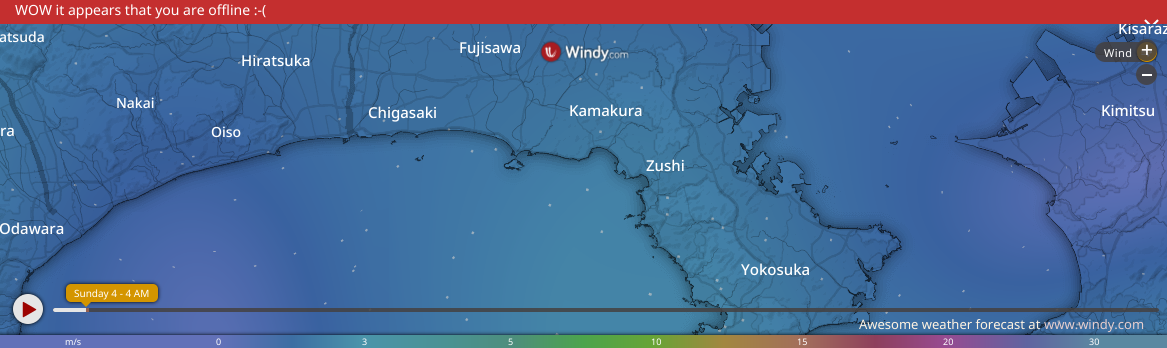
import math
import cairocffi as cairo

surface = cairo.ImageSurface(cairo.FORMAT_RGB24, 1167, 348)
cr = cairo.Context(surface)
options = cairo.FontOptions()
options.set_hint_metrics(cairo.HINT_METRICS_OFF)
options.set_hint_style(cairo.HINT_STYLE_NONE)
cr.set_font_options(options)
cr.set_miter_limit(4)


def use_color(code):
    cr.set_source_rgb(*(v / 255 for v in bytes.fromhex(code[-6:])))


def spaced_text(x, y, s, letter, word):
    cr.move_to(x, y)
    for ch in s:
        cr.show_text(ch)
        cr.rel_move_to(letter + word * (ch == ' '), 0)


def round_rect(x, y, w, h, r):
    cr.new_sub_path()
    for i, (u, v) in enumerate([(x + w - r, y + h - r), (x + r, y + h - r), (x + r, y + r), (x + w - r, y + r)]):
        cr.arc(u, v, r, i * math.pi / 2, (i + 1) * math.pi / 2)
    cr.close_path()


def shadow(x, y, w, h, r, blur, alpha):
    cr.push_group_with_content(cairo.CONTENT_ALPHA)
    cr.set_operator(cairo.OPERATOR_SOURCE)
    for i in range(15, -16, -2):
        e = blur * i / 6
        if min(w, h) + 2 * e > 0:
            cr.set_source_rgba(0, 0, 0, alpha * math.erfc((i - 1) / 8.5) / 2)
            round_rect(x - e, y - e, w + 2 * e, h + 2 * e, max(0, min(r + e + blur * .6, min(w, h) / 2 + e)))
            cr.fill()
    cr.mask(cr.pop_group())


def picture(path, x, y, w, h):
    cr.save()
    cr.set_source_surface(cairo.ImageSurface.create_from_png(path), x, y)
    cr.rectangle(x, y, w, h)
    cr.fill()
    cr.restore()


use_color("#ffffff")
cr.paint()
picture("img6.png", 900, 24, 256, 109)
picture("img7.png", 1156, 24, 11, 109)
picture("img2.png", 0, 24, 132, 109)
picture("img3.png", 132, 24, 256, 109)
picture("img4.png", 388, 24, 256, 109)
picture("img5.png", 644, 24, 256, 109)
picture("img8.png", 0, 133, 132, 202)
picture("img9.png", 132, 133, 256, 202)
picture("img10.png", 388, 133, 256, 202)
picture("img11.png", 644, 133, 256, 202)
picture("img12.png", 900, 133, 256, 202)
picture("img26.png", 11, 28, 1134, 307)
picture("img18.png", 957, 24, 199, 109)
picture("img19.png", 1156, 24, 11, 109)
cr.select_font_face("Noto Sans Medium")
cr.set_font_size(15)
use_color("#ffffff")
cr.move_to(1118, 34)
cr.show_text("Kisaraz")
use_color("#c42f2f")
cr.rectangle(0, 0, 1167, 24)
cr.fill()
cr.select_font_face("Noto Sans")
cr.set_font_size(14)
use_color("#ffffff")
cr.move_to(15, 15)
cr.show_text("WOW it appears that you are offline :-(")
picture("img1.png", 1144, 19, 15, 5)
picture("img14.png", 0, 24, 132, 109)
cr.select_font_face("Noto Sans Medium")
cr.move_to(-1, 42)
cr.show_text("atsuda")
picture("img20.png", 0, 133, 132, 202)
cr.set_font_size(15)
cr.move_to(0, 136)
cr.show_text("ra")
picture("img15.png", 132, 24, 256, 109)
cr.move_to(241, 66)
cr.show_text("Hiratsuka")
cr.set_font_size(14)
cr.move_to(116, 108)
cr.show_text("Nakai")
picture("img21.png", 132, 133, 256, 79)
cr.move_to(211, 137)
cr.show_text("Oiso")
picture("img16.png", 388, 24, 256, 109)
cr.set_font_size(15)
cr.move_to(459, 53)
cr.show_text("Fujisawa")
cr.move_to(368, 118)
cr.show_text("Chigasaki")
cr.move_to(569, 116)
cr.show_text("Kamakura")
cr.move_to(1101, 116)
cr.show_text("Kimitsu")
cr.move_to(-1, 234)
cr.show_text("Odawara")
picture("img23.png", 644, 133, 256, 202)
cr.move_to(646, 171)
cr.show_text("Zushi")
cr.move_to(741, 275)
cr.show_text("Yokosuka")
picture("img13.png", 1156, 133, 11, 202)
picture("img17.png", 644, 24, 142, 109)
picture("img22.png", 388, 133, 256, 110)
picture("img24.png", 900, 133, 256, 202)
picture("img25.png", 1156, 133, 11, 202)
picture("img27.png", 539, 40, 24, 24)
picture("img28.png", 564, 44, 66, 19)
cr.set_source_rgba(0.267, 0.255, 0.255, 0.84)
round_rect(1095, 42, 62, 20, 10)
cr.fill()
cr.select_font_face("Noto Sans")
cr.set_font_size(11)
use_color("#ffffff")
spaced_text(1104, 57, "Wind", 0.5, 0)
use_color("#000000")
shadow(1137, 42, 20, 20, 10, 1, 1)
use_color("#d49500")
cr.arc(1147, 52, 10, 0, 2 * math.pi)
cr.fill()
picture("img29.png", 1141, 50, 11, 7)
cr.set_source_rgba(0.267, 0.255, 0.255, 0.84)
round_rect(1136, 39, 21, 22, 10.5)
cr.fill()
picture("img30.png", 1141, 44, 12, 11)
cr.arc(1146.5, 74.5, 10.5, 0, 2 * math.pi)
cr.fill()
use_color("#ffffff")
cr.rectangle(1142, 74, 10, 2)
cr.fill()
use_color("#000000")
shadow(13, 294, 30, 30, 15, 2, 1)
use_color("#e5e5e5")
cr.arc(28, 309, 15, 0, 2 * math.pi)
cr.fill()
picture("img31.png", 22, 301, 15, 17)
use_color("#000000")
shadow(66, 284, 92, 18, 5, 2, 1)
use_color("#d49500")
round_rect(66, 284, 92, 18, 5)
cr.fill()
cr.set_font_size(10)
use_color("#ffffff")
cr.move_to(74, 297)
cr.show_text("Sunday 4 - 4 AM")
use_color("#d49500")
cr.new_path()
cr.move_to(81, 302)
cr.line_to(91, 302)
cr.line_to(86, 307)
cr.close_path()
cr.fill()
cr.set_source_rgba(0.267, 0.255, 0.255, 0.84)
round_rect(53, 308, 1106, 4, 2)
cr.fill()
use_color("#e5e5e5")
cr.new_path()
cr.move_to(55, 308)
cr.line_to(86, 308)
cr.line_to(86, 312)
cr.line_to(55, 312)
cr.curve_to(54, 312, 53, 311, 53, 310)
cr.curve_to(53, 309, 54, 308, 55, 308)
cr.close_path()
cr.fill()
use_color("#946051")
cr.rectangle(86, 308, 3, 4)
cr.fill()
use_color("#000000")
shadow(0, 335, 1167, 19, 0, 2, 1)
cr.set_font_size(13)
use_color("#fff3e1")
cr.move_to(859, 329)
cr.show_text("Awesome weather forecast at")
use_color("#e6cece")
cr.move_to(1044, 329)
cr.show_text("www.windy.com")
gradient = cairo.LinearGradient(0, 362, 1167, 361)
gradient.add_color_stop_rgba(0, 0.384, 0.443, 0.722, 1)
gradient.add_color_stop_rgba(0.19, 0.384, 0.443, 0.722, 1)
gradient.add_color_stop_rgba(0.25, 0.239, 0.431, 0.639, 1)
gradient.add_color_stop_rgba(0.31, 0.29, 0.58, 0.667, 1)
gradient.add_color_stop_rgba(0.38, 0.29, 0.573, 0.58, 1)
gradient.add_color_stop_rgba(0.44, 0.302, 0.557, 0.486, 1)
gradient.add_color_stop_rgba(0.5, 0.298, 0.643, 0.298, 1)
gradient.add_color_stop_rgba(0.56, 0.404, 0.643, 0.212, 1)
gradient.add_color_stop_rgba(0.62, 0.635, 0.529, 0.251, 1)
gradient.add_color_stop_rgba(0.69, 0.635, 0.427, 0.361, 1)
gradient.add_color_stop_rgba(0.75, 0.553, 0.247, 0.361, 1)
gradient.add_color_stop_rgba(0.81, 0.592, 0.294, 0.569, 1)
gradient.add_color_stop_rgba(0.88, 0.373, 0.392, 0.627, 1)
gradient.add_color_stop_rgba(0.94, 0.357, 0.533, 0.631, 1)
gradient.add_color_stop_rgba(1, 0.357, 0.533, 0.631, 1)
cr.set_source(gradient)
cr.rectangle(0, 335, 1167, 13)
cr.fill()
cr.set_font_size(9)
use_color("#ffffff")
cr.move_to(65, 345)
cr.show_text("m/s")
cr.move_to(216, 345)
cr.show_text("0")
cr.move_to(362, 345)
cr.show_text("3")
cr.move_to(508, 345)
cr.show_text("5")
cr.move_to(651, 345)
cr.show_text("10")
cr.move_to(797, 345)
cr.show_text("15")
cr.move_to(943, 345)
cr.show_text("20")
cr.move_to(1089, 345)
cr.show_text("30")
surface.write_to_png("result.png")
